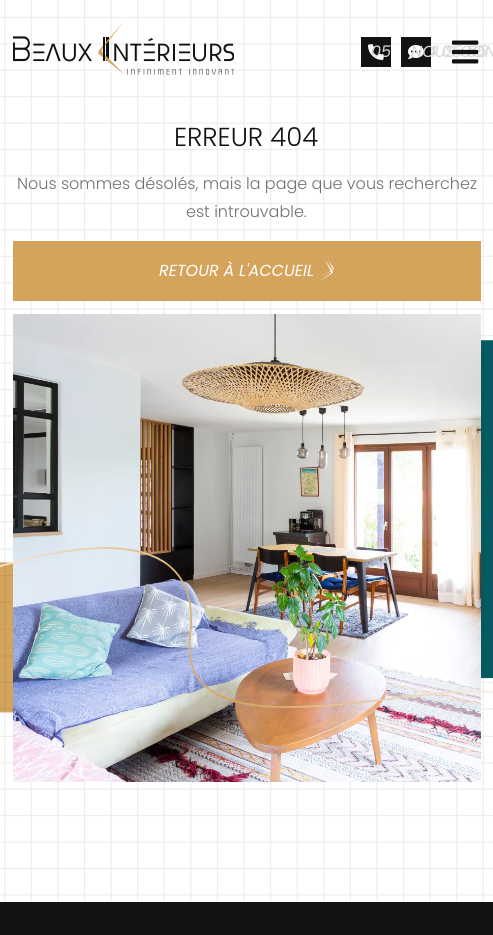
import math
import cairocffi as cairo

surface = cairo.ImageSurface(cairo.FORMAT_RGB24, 493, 935)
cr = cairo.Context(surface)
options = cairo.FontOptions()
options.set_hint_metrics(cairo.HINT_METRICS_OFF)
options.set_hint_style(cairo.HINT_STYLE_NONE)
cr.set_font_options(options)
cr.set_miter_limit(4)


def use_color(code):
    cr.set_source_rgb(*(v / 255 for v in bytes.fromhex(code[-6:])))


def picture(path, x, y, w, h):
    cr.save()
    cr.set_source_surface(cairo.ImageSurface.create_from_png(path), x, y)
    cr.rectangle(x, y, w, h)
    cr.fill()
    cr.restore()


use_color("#ffffff")
cr.paint()
picture("img8.png", 0, 340, 493, 373)
picture("img5.png", 0, 0, 493, 902)
picture("img1.png", 13, 20, 221, 55)
cr.select_font_face("Poppins", cairo.FONT_SLANT_ITALIC)
cr.set_font_size(16)
use_color("#d7d7d7")
cr.move_to(427, 57)
cr.show_text("4 05 55")
use_color("#121212")
cr.rectangle(401, 37, 30, 30)
cr.fill()
picture("img4.png", 408, 45, 16, 14)
use_color("#d7d7d7")
cr.move_to(411, 57)
cr.show_text("NOUS CON")
picture("img2.png", 452, 40, 27, 24)
use_color("#121212")
cr.rectangle(361, 37, 30, 30)
cr.fill()
picture("img3.png", 368, 44, 16, 16)
use_color("#d7d7d7")
cr.move_to(371, 57)
cr.show_text("05")
cr.select_font_face("Poppins Light")
cr.set_font_size(26)
use_color("#121212")
cr.move_to(174, 146)
cr.show_text("ERREUR 404")
cr.set_font_size(16)
use_color("#717171")
cr.move_to(17, 189)
cr.show_text("Nous sommes désolés, mais la page que vous recherchez")
cr.move_to(186, 217)
cr.show_text("est introuvable.")
use_color("#d4a45c")
cr.rectangle(13, 241, 468, 60)
cr.fill()
cr.select_font_face("Poppins", cairo.FONT_SLANT_ITALIC)
use_color("#ffffff")
cr.move_to(159, 276)
cr.show_text("RETOUR À L'ACCUEIL")
picture("img6.png", 318, 260, 16, 22)
picture("img7.png", 13, 314, 468, 468)
picture("img9.png", 0, 547, 493, 214)
use_color("#121212")
cr.rectangle(0, 902, 493, 33)
cr.fill()
surface.write_to_png("result.png")
